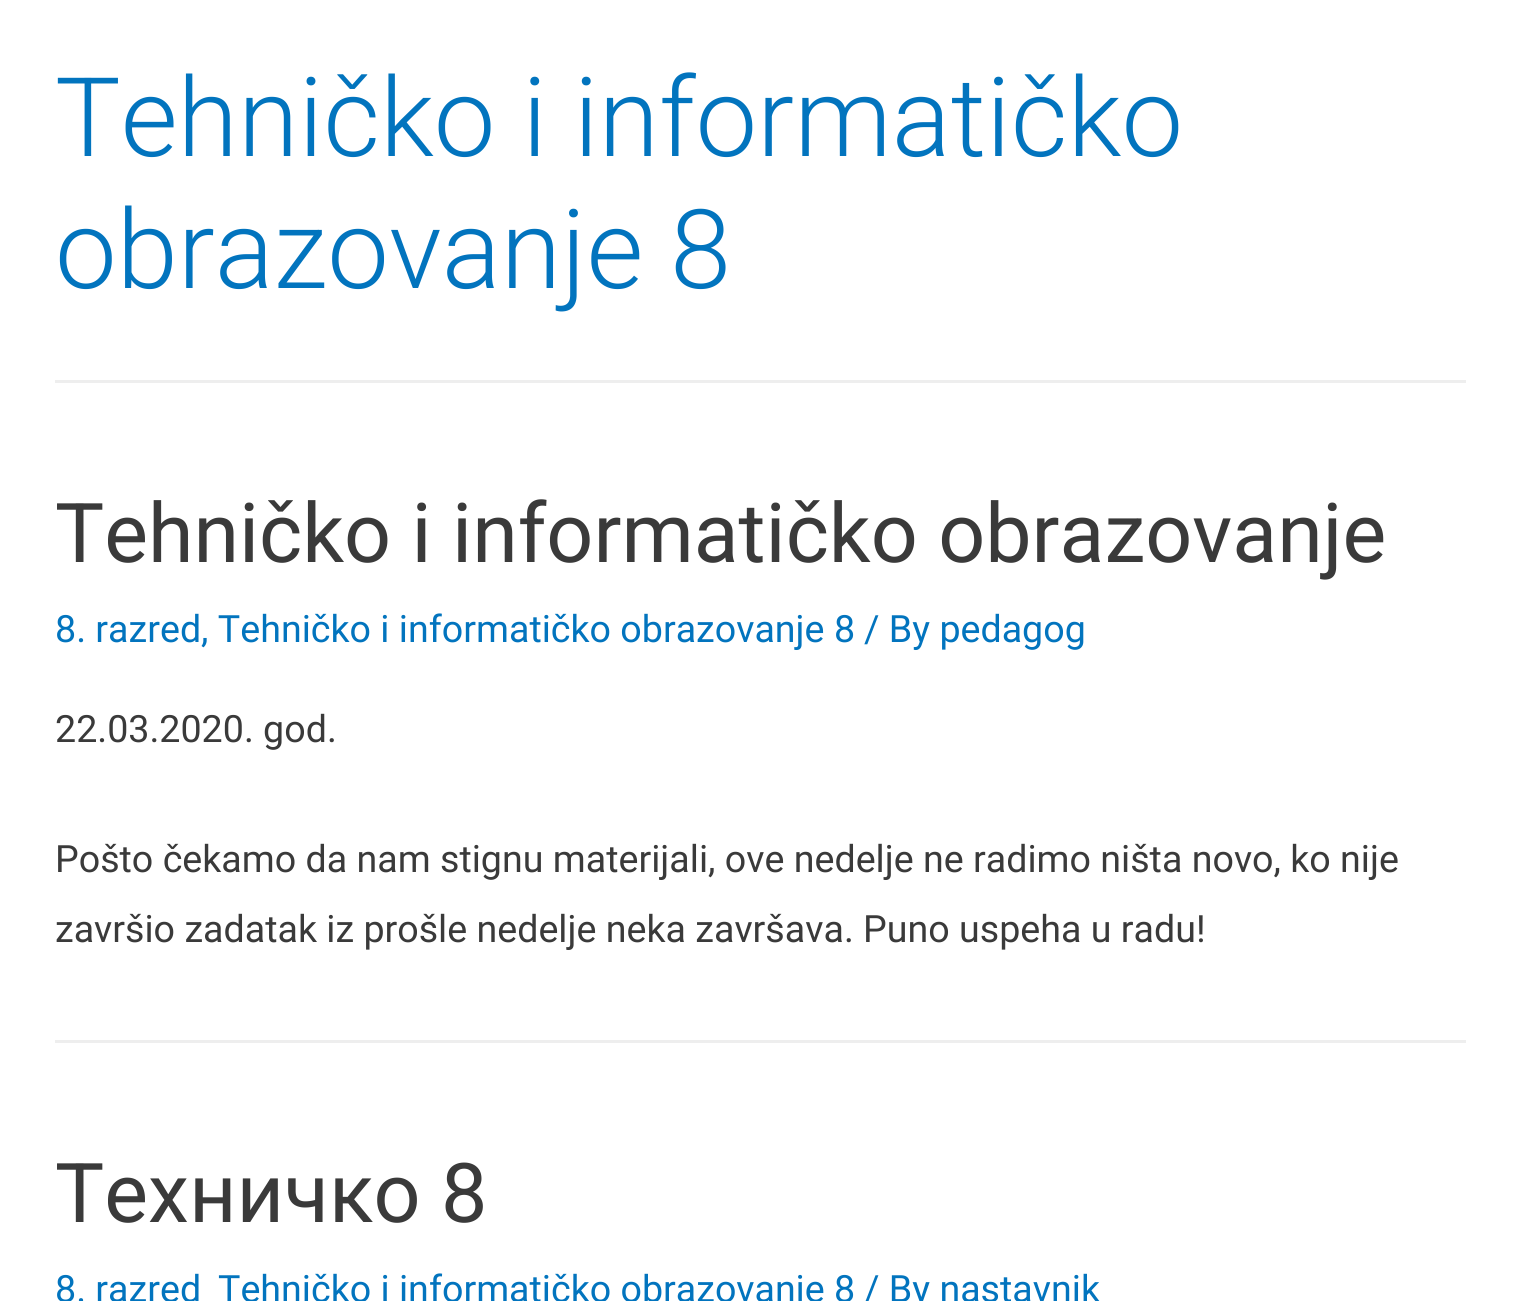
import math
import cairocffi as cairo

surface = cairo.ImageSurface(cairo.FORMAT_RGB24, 1520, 1301)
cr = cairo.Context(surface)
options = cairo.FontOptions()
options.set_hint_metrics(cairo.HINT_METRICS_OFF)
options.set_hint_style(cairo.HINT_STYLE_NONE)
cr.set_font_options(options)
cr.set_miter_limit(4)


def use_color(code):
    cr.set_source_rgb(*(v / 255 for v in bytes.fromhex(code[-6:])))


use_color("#ffffff")
cr.paint()
use_color("#eeeeee")
cr.rectangle(55, 380, 1411, 3)
cr.fill()
cr.select_font_face("Roboto Light")
cr.set_font_size(110)
use_color("#0274be")
cr.move_to(55, 156)
cr.show_text("Tehničko i informatičko")
cr.move_to(55, 288)
cr.show_text("obrazovanje 8")
use_color("#eeeeee")
cr.rectangle(55, 1040, 1411, 3)
cr.fill()
cr.select_font_face("Roboto")
cr.set_font_size(82.5)
use_color("#3a3a3a")
cr.move_to(55, 562)
cr.show_text("Tehničko i informatičko obrazovanje")
cr.set_font_size(37.6)
use_color("#0274be")
cr.move_to(55, 642)
cr.show_text("8. razred, Tehničko i informatičko obrazovanje 8")
cr.move_to(864, 642)
cr.show_text("/ By pedagog")
use_color("#3a3a3a")
cr.move_to(55, 742)
cr.show_text("22.03.2020. god.")
cr.move_to(55, 872)
cr.show_text("Pošto čekamo da nam stignu materijali, ove nedelje ne radimo ništa novo, ko nije")
cr.move_to(55, 942)
cr.show_text("završio zadatak iz prošle nedelje neka završava. Puno uspeha u radu!")
cr.set_font_size(82.5)
cr.move_to(55, 1222)
cr.show_text("Техничко 8")
cr.set_font_size(37.6)
use_color("#0274be")
cr.move_to(55, 1302)
cr.show_text("8. razred")
cr.move_to(218, 1302)
cr.show_text("Tehničko i informatičko obrazovanje 8")
cr.move_to(864, 1302)
cr.show_text("/ By nastavnik")
surface.write_to_png("result.png")
